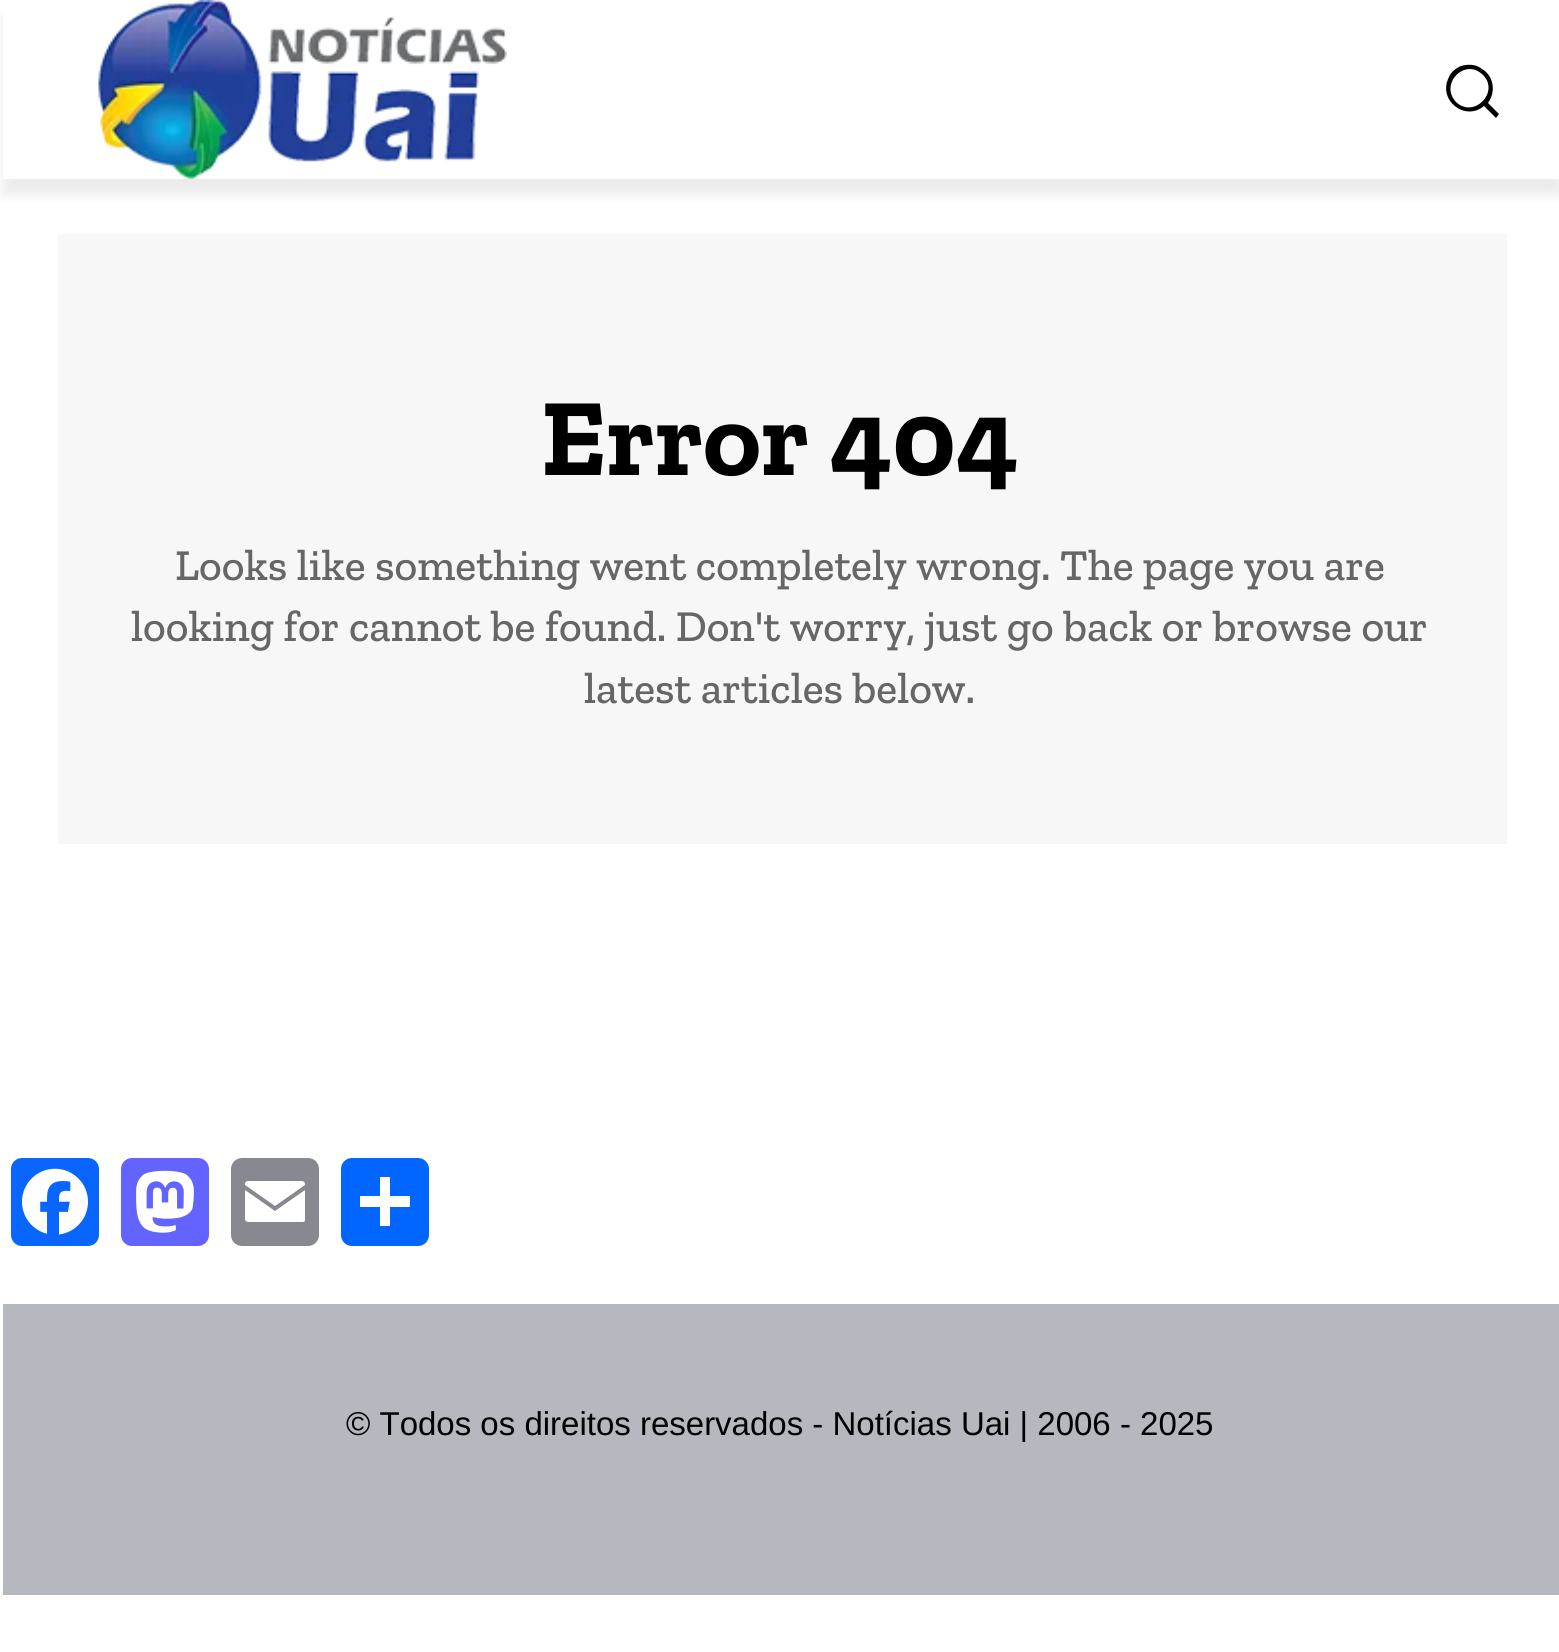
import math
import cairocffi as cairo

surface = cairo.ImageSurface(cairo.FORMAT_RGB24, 1559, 1652)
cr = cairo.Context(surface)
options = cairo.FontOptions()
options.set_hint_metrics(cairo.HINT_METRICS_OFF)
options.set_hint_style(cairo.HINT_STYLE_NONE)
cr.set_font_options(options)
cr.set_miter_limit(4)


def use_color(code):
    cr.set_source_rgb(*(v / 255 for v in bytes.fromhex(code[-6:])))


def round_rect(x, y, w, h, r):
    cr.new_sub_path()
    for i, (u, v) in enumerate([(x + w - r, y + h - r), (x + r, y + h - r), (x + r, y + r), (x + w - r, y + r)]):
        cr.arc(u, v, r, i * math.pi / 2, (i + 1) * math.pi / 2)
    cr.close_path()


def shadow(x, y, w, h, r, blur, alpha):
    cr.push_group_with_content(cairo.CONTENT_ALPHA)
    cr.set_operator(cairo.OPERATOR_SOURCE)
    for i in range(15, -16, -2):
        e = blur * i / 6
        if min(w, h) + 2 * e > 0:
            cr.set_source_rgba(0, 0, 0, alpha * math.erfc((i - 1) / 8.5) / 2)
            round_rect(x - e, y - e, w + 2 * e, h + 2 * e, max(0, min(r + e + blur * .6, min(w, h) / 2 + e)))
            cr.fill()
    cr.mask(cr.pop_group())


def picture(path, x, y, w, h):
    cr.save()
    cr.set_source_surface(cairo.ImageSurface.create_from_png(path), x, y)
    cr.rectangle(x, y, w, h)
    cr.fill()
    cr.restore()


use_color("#ffffff")
cr.paint()
picture("img1.png", 98, 0, 409, 179)
use_color("#000000")
cr.new_path()
cr.move_to(1499, 114)
cr.line_to(1488, 103)
cr.curve_to(1496, 92, 1494, 76, 1482, 69)
cr.curve_to(1476, 64, 1468, 64, 1461, 66)
cr.curve_to(1456, 68, 1451, 72, 1449, 77)
cr.curve_to(1437, 100, 1465, 122, 1484, 106)
cr.line_to(1496, 118)
cr.close_path()
cr.move_to(1456, 102)
cr.curve_to(1439, 84, 1465, 57, 1483, 75)
cr.curve_to(1500, 92, 1474, 119, 1456, 102)
cr.close_path()
cr.fill()
cr.save()
cr.set_fill_rule(cairo.FILL_RULE_EVEN_ODD)
cr.new_path()
cr.move_to(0, 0)
cr.line_to(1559, 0)
cr.line_to(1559, 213)
cr.line_to(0, 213)
cr.close_path()
cr.move_to(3, 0)
cr.line_to(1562, 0)
cr.line_to(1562, 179)
cr.line_to(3, 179)
cr.close_path()
cr.clip()
use_color("#000000")
shadow(3, 17, 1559, 178, 0, 5.5, 0.08)
cr.restore()
use_color("#f7f7f7")
cr.rectangle(58, 234, 1449, 610)
cr.fill()
cr.select_font_face("Zilla Slab", cairo.FONT_SLANT_NORMAL, cairo.FONT_WEIGHT_BOLD)
cr.set_font_size(110)
use_color("#000000")
cr.move_to(541, 475)
cr.show_text("Error 404")
cr.select_font_face("Zilla Slab Medium")
cr.set_font_size(44)
use_color("#666666")
cr.move_to(175, 580)
cr.show_text("Looks like something went completely wrong. The page you are")
cr.move_to(131, 641)
cr.show_text("looking for cannot be found. Don't worry, just go back or browse our")
cr.move_to(584, 703)
cr.show_text("latest articles below.")
use_color("#0866ff")
round_rect(11, 1158, 88, 88, 11)
cr.fill()
picture("img2.png", 22, 1168, 66, 67)
use_color("#6364ff")
round_rect(121, 1158, 88, 88, 11)
cr.fill()
picture("img3.png", 136, 1170, 58, 63)
use_color("#888990")
round_rect(231, 1158, 88, 88, 11)
cr.fill()
use_color("#ffffff")
cr.new_path()
cr.move_to(305, 1218)
cr.line_to(305, 1190)
cr.line_to(275, 1211)
cr.line_to(245, 1190)
cr.line_to(245, 1218)
cr.curve_to(245, 1221, 246, 1222, 249, 1222)
cr.line_to(301, 1222)
cr.curve_to(305, 1222, 305, 1222, 305, 1218)
cr.move_to(305, 1185)
cr.curve_to(305, 1182, 304, 1181, 301, 1181)
cr.line_to(249, 1181)
cr.curve_to(245, 1181, 245, 1183, 245, 1185)
cr.line_to(275, 1206)
cr.close_path()
cr.fill()
use_color("#0166ff")
round_rect(341, 1158, 88, 88, 11)
cr.fill()
use_color("#ffffff")
cr.rectangle(380, 1177, 10, 49)
cr.fill()
cr.rectangle(360, 1196, 50, 11)
cr.fill()
use_color("#b5b8bf")
cr.rectangle(3, 1304, 1556, 291)
cr.fill()
cr.select_font_face("Arimo")
cr.set_font_size(33)
use_color("#000000")
cr.move_to(346, 1435)
cr.show_text("© Todos os direitos reservados - Notícias Uai | 2006 - 2025")
surface.write_to_png("result.png")
